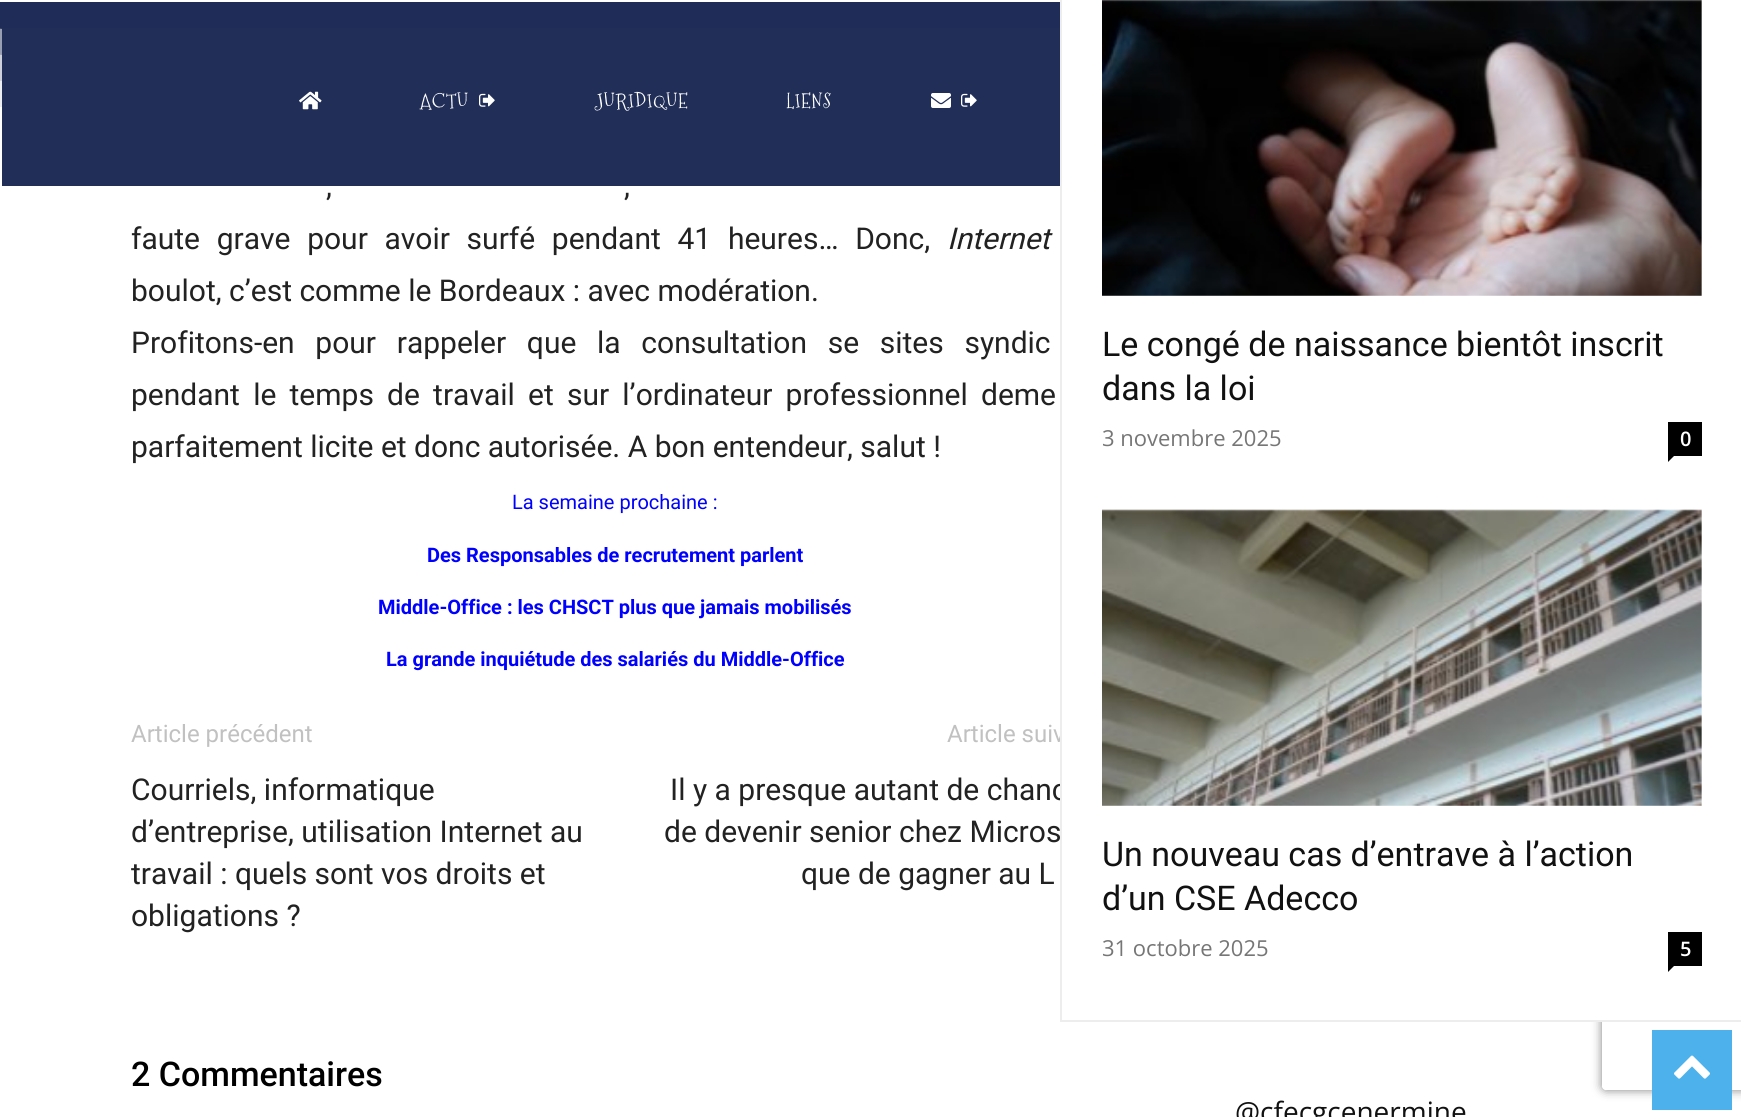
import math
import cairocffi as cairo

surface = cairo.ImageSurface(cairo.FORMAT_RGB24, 1741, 1117)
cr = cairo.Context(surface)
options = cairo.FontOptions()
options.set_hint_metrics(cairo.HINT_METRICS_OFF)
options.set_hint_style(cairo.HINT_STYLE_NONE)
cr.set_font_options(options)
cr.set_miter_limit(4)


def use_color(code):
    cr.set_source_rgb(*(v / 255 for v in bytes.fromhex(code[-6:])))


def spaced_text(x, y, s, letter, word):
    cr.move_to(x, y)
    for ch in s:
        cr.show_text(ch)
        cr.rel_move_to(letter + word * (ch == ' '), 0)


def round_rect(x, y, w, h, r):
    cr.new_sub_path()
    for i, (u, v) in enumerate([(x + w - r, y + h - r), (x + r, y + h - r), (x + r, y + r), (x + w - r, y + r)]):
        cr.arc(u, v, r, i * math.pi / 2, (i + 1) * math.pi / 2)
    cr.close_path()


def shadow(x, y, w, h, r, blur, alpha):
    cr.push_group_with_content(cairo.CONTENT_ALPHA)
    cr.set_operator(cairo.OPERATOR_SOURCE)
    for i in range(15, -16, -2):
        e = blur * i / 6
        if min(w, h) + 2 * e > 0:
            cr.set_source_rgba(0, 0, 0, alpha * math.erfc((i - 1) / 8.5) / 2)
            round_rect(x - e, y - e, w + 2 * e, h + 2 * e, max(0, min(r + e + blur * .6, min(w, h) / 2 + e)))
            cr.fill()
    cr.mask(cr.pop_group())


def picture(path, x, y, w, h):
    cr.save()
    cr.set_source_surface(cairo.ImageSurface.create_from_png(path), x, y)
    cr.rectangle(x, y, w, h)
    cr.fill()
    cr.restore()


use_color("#ffffff")
cr.paint()
cr.save()
cr.rectangle(0, 2, 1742, 184)
cr.clip()
use_color("#212e58")
cr.new_path()
cr.move_to(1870, -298)
cr.line_to(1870, 14)
cr.line_to(870, 127)
cr.line_to(-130, 14)
cr.line_to(-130, -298)
cr.close_path()
cr.fill()
cr.set_source_rgba(0.129, 0.18, 0.345, 0.3)
cr.new_path()
cr.move_to(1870, -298)
cr.line_to(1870, 44)
cr.line_to(870, 127)
cr.line_to(-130, 44)
cr.line_to(-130, -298)
cr.close_path()
cr.fill()
cr.set_source_rgba(0.129, 0.18, 0.345, 0.15)
cr.new_path()
cr.move_to(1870, -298)
cr.line_to(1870, 74)
cr.line_to(870, 127)
cr.line_to(-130, 74)
cr.line_to(-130, -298)
cr.close_path()
cr.fill()
cr.set_source_rgba(0.129, 0.18, 0.345, 0.08)
cr.new_path()
cr.move_to(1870, -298)
cr.line_to(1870, 104)
cr.line_to(870, 127)
cr.line_to(-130, 104)
cr.line_to(-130, -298)
cr.close_path()
cr.fill()
cr.restore()
use_color("#212e58")
cr.rectangle(2, 28, 1058, 158)
cr.fill()
picture("img1.png", 299, 91, 23, 19)
cr.select_font_face("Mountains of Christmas")
cr.set_font_size(20)
use_color("#ffffff")
spaced_text(420, 108, "ACTU", 0.75, 0)
picture("img2.png", 479, 93, 16, 14)
spaced_text(595, 108, "JURIDIQUE", 0.75, 0)
spaced_text(786, 108, "LIENS", 0.75, 0)
picture("img3.png", 931, 93, 20, 15)
picture("img2.png", 961, 93, 16, 14)
cr.select_font_face("Roboto")
cr.set_font_size(30)
use_color("#222222")
spaced_text(326, 196, ",", 0, 6)
spaced_text(624, 196, ",", 0, 6)
spaced_text(131, 249, "faute grave pour avoir surfé pendant 41 heures… Donc,", 0, 9.25)
cr.select_font_face("Roboto", cairo.FONT_SLANT_ITALIC)
cr.move_to(947, 249)
cr.show_text("Internet")
cr.select_font_face("Roboto")
cr.move_to(131, 301)
cr.show_text("boulot, c’est comme le Bordeaux : avec modération.")
spaced_text(131, 353, "Profitons-en pour rappeler que la consultation se sites syndic", 0, 13.25)
spaced_text(131, 405, "pendant le temps de travail et sur l’ordinateur professionnel deme", 0, 5.75)
cr.move_to(131, 457)
cr.show_text("parfaitement licite et donc autorisée. A bon entendeur, salut !")
cr.set_font_size(20)
use_color("#0000ff")
cr.move_to(512, 509)
cr.show_text("La semaine prochaine :")
cr.select_font_face("Roboto", cairo.FONT_SLANT_NORMAL, cairo.FONT_WEIGHT_BOLD)
cr.move_to(427, 562)
cr.show_text("Des Responsables de recrutement parlent")
cr.move_to(378, 614)
cr.show_text("Middle-Office : les CHSCT plus que jamais mobilisés")
cr.move_to(386, 666)
cr.show_text("La grande inquiétude des salariés du Middle-Office")
cr.select_font_face("Roboto")
cr.set_font_size(24)
use_color("#c1c1c1")
cr.move_to(131, 742)
cr.show_text("Article précédent")
cr.set_font_size(30)
use_color("#222222")
cr.move_to(131, 800)
cr.show_text("Courriels, informatique")
cr.move_to(131, 842)
cr.show_text("d’entreprise, utilisation Internet au")
cr.move_to(131, 884)
cr.show_text("travail : quels sont vos droits et")
cr.move_to(131, 926)
cr.show_text("obligations ?")
cr.set_font_size(24)
use_color("#c1c1c1")
cr.move_to(947, 742)
cr.show_text("Article suiv")
cr.set_font_size(30)
use_color("#222222")
cr.move_to(670, 800)
cr.show_text("Il y a presque autant de chanc")
cr.move_to(664, 842)
cr.show_text("de devenir senior chez Micros")
cr.move_to(801, 884)
cr.show_text("que de gagner au L")
cr.select_font_face("Roboto Medium")
cr.set_font_size(34)
use_color("#000000")
cr.move_to(131, 1086)
cr.show_text("2 Commentaires")
cr.select_font_face("Open Sans")
cr.set_font_size(28)
use_color("#111111")
cr.move_to(1235, 1122)
cr.show_text("@cfecgcenermine")
cr.save()
cr.set_fill_rule(cairo.FILL_RULE_EVEN_ODD)
cr.new_path()
cr.move_to(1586, 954)
cr.line_to(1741, 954)
cr.line_to(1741, 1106)
cr.line_to(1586, 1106)
cr.close_path()
cr.move_to(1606, 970)
cr.line_to(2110, 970)
cr.curve_to(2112, 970, 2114, 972, 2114, 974)
cr.line_to(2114, 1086)
cr.curve_to(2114, 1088, 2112, 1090, 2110, 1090)
cr.line_to(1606, 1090)
cr.curve_to(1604, 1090, 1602, 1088, 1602, 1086)
cr.line_to(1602, 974)
cr.curve_to(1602, 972, 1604, 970, 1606, 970)
cr.close_path()
cr.clip()
use_color("#808080")
shadow(1602, 970, 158, 120, 4, 5, 1)
cr.restore()
use_color("#ffffff")
cr.rectangle(1062, 2, 679, 1018)
cr.fill()
use_color("#ededed")
cr.rectangle(1060, 1020, 681, 2)
cr.fill()
cr.rectangle(1060, 0, 2, 1022)
cr.fill()
picture("img4.png", 1102, 0, 600, 296)
cr.select_font_face("Roboto")
cr.set_font_size(34)
use_color("#111111")
cr.move_to(1102, 356)
cr.show_text("Le congé de naissance bientôt inscrit")
cr.move_to(1102, 400)
cr.show_text("dans la loi")
cr.select_font_face("Open Sans")
cr.set_font_size(22)
use_color("#767676")
cr.move_to(1102, 446)
cr.show_text("3 novembre 2025")
use_color("#000000")
cr.rectangle(1668, 422, 34, 34)
cr.fill()
cr.select_font_face("Open Sans SemiBold")
cr.set_font_size(20)
use_color("#ffffff")
cr.move_to(1680, 446)
cr.show_text("0")
use_color("#000000")
cr.new_path()
cr.move_to(1668, 456)
cr.line_to(1674, 456)
cr.line_to(1668, 462)
cr.close_path()
cr.fill()
picture("img5.png", 1102, 509, 600, 297)
cr.select_font_face("Roboto")
cr.set_font_size(34)
use_color("#111111")
cr.move_to(1102, 866)
cr.show_text("Un nouveau cas d’entrave à l’action")
cr.move_to(1102, 910)
cr.show_text("d’un CSE Adecco")
cr.select_font_face("Open Sans")
cr.set_font_size(22)
use_color("#767676")
cr.move_to(1102, 956)
cr.show_text("31 octobre 2025")
use_color("#000000")
cr.rectangle(1668, 932, 34, 34)
cr.fill()
cr.select_font_face("Open Sans SemiBold")
cr.set_font_size(20)
use_color("#ffffff")
cr.move_to(1680, 956)
cr.show_text("5")
use_color("#000000")
cr.new_path()
cr.move_to(1668, 966)
cr.line_to(1674, 966)
cr.line_to(1668, 972)
cr.close_path()
cr.fill()
use_color("#4db2ec")
cr.rectangle(1652, 1030, 80, 80)
cr.fill()
picture("img6.png", 1674, 1055, 36, 24)
surface.write_to_png("result.png")
